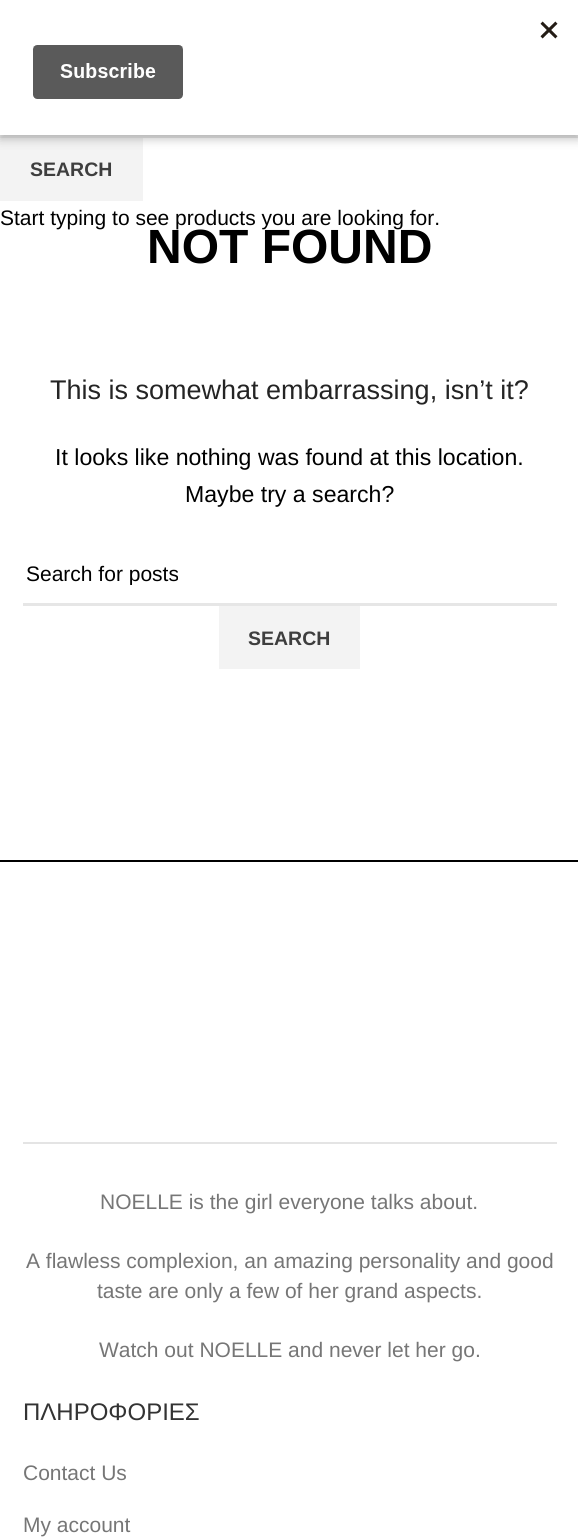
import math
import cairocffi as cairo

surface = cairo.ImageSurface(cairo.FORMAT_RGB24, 578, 1538)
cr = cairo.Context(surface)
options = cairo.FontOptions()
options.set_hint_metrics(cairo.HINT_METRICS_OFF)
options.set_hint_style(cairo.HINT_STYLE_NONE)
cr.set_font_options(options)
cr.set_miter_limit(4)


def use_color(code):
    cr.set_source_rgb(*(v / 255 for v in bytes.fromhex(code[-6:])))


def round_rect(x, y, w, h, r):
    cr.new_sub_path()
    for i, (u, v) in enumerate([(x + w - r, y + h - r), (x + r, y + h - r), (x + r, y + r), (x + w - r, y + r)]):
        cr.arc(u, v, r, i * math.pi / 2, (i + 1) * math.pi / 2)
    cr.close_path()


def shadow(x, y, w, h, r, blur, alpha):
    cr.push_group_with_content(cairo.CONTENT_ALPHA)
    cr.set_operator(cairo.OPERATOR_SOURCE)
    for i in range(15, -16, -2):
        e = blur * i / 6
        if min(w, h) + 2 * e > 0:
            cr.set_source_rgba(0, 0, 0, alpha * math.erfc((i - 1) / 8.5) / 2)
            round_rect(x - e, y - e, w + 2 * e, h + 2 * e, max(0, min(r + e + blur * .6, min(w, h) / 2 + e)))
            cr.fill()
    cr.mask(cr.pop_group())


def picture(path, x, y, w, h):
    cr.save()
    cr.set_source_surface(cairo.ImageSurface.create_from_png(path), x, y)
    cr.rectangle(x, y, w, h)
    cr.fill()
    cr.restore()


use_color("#ffffff")
cr.paint()
use_color("#e6e6e6")
cr.rectangle(0, 135, 578, 3)
cr.fill()
use_color("#f3f3f3")
cr.rectangle(0, 138, 143, 63)
cr.fill()
use_color("#000000")
shadow(0, 5, 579, 135, 0, 4.5, 0.2)
use_color("#ffffff")
cr.rectangle(0, 0, 578, 135)
cr.fill()
picture("img1.png", 32, 21, 526, 78)
cr.select_font_face("Liberation Sans", cairo.FONT_SLANT_NORMAL, cairo.FONT_WEIGHT_BOLD)
cr.set_font_size(19.5)
use_color("#3e3e3e")
cr.move_to(30, 176)
cr.show_text("SEARCH")
cr.select_font_face("Liberation Sans")
cr.set_font_size(21)
use_color("#000000")
cr.move_to(0, 225)
cr.show_text("Start typing to see products you are looking for.")
cr.select_font_face("Liberation Sans", cairo.FONT_SLANT_NORMAL, cairo.FONT_WEIGHT_BOLD)
cr.set_font_size(48)
cr.move_to(147, 263)
cr.show_text("NOT FOUND")
cr.select_font_face("Liberation Sans")
cr.set_font_size(27)
use_color("#242424")
cr.move_to(50, 399)
cr.show_text("This is somewhat embarrassing, isn’t it?")
cr.set_font_size(23.1)
use_color("#000000")
cr.move_to(55, 465)
cr.show_text("It looks like nothing was found at this location.")
cr.move_to(185, 502)
cr.show_text("Maybe try a search?")
use_color("#e6e6e6")
cr.rectangle(23, 603, 534, 3)
cr.fill()
cr.save()
cr.rectangle(26, 561, 528, 24)
cr.clip()
cr.set_font_size(21)
use_color("#000000")
cr.move_to(26, 581)
cr.show_text("Search for posts")
cr.restore()
use_color("#f3f3f3")
cr.rectangle(219, 606, 141, 63)
cr.fill()
cr.select_font_face("Liberation Sans", cairo.FONT_SLANT_NORMAL, cairo.FONT_WEIGHT_BOLD)
cr.set_font_size(19.5)
use_color("#3e3e3e")
cr.move_to(248, 645)
cr.show_text("SEARCH")
use_color("#000000")
cr.rectangle(0, 860, 578, 2)
cr.fill()
use_color("#e4e4e4")
cr.rectangle(23, 1142, 534, 2)
cr.fill()
cr.select_font_face("Liberation Sans")
cr.set_font_size(21)
use_color("#767676")
cr.move_to(100, 1209)
cr.show_text("NOELLE is the girl everyone talks about.")
cr.move_to(26, 1268)
cr.show_text("A flawless complexion, an amazing personality and good")
cr.move_to(97, 1298)
cr.show_text("taste are only a few of her grand aspects.")
cr.move_to(99, 1357)
cr.show_text("Watch out NOELLE and never let her go.")
cr.set_font_size(24)
use_color("#333333")
cr.move_to(23, 1420)
cr.show_text("ΠΛΗΡΟΦΟΡΙΕΣ")
cr.set_font_size(21)
use_color("#767676")
cr.move_to(23, 1480)
cr.show_text("Contact Us")
cr.move_to(23, 1532)
cr.show_text("My account")
surface.write_to_png("result.png")
